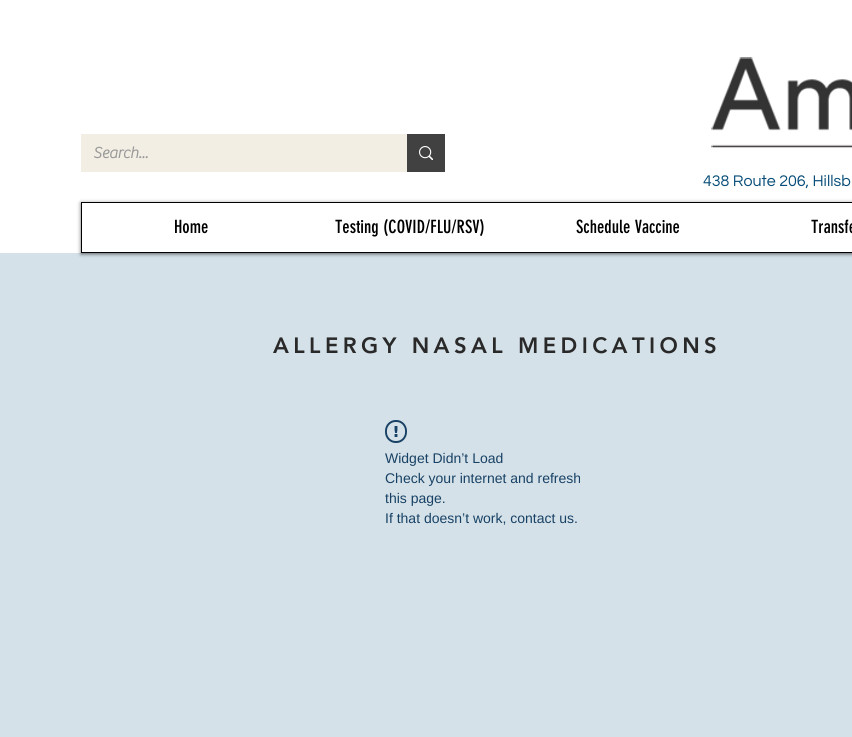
import math
import cairocffi as cairo

surface = cairo.ImageSurface(cairo.FORMAT_RGB24, 852, 737)
cr = cairo.Context(surface)
options = cairo.FontOptions()
options.set_hint_metrics(cairo.HINT_METRICS_OFF)
options.set_hint_style(cairo.HINT_STYLE_NONE)
cr.set_font_options(options)
cr.set_miter_limit(4)


def use_color(code):
    cr.set_source_rgb(*(v / 255 for v in bytes.fromhex(code[-6:])))


def spaced_text(x, y, s, letter, word):
    cr.move_to(x, y)
    for ch in s:
        cr.show_text(ch)
        cr.rel_move_to(letter + word * (ch == ' '), 0)


def round_rect(x, y, w, h, r):
    cr.new_sub_path()
    for i, (u, v) in enumerate([(x + w - r, y + h - r), (x + r, y + h - r), (x + r, y + r), (x + w - r, y + r)]):
        cr.arc(u, v, r, i * math.pi / 2, (i + 1) * math.pi / 2)
    cr.close_path()


def shadow(x, y, w, h, r, blur, alpha):
    cr.push_group_with_content(cairo.CONTENT_ALPHA)
    cr.set_operator(cairo.OPERATOR_SOURCE)
    for i in range(15, -16, -2):
        e = blur * i / 6
        if min(w, h) + 2 * e > 0:
            cr.set_source_rgba(0, 0, 0, alpha * math.erfc((i - 1) / 8.5) / 2)
            round_rect(x - e, y - e, w + 2 * e, h + 2 * e, max(0, min(r + e + blur * .6, min(w, h) / 2 + e)))
            cr.fill()
    cr.mask(cr.pop_group())


def picture(path, x, y, w, h):
    cr.save()
    cr.set_source_surface(cairo.ImageSurface.create_from_png(path), x, y)
    cr.rectangle(x, y, w, h)
    cr.fill()
    cr.restore()


use_color("#d5e1e8")
cr.paint()
use_color("#ffffff")
cr.rectangle(0, 0, 852, 253)
cr.fill()
picture("img1.png", 711, 57, 141, 91)
use_color("#f2eee4")
cr.rectangle(81, 134, 326, 38)
cr.fill()
cr.select_font_face("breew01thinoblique", cairo.FONT_SLANT_NORMAL, cairo.FONT_WEIGHT_BOLD)
cr.set_font_size(16)
use_color("#999999")
cr.move_to(93, 158)
cr.show_text("Search...")
use_color("#414141")
cr.rectangle(407, 134, 38, 38)
cr.fill()
picture("img2.png", 419, 146, 14, 14)
cr.select_font_face("Questrial")
use_color("#074d78")
cr.move_to(703, 186)
cr.show_text("438 Route 206, Hillsb")
cr.save()
cr.set_fill_rule(cairo.FILL_RULE_EVEN_ODD)
cr.new_path()
cr.move_to(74, 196)
cr.line_to(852, 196)
cr.line_to(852, 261)
cr.line_to(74, 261)
cr.close_path()
cr.move_to(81, 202)
cr.line_to(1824, 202)
cr.line_to(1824, 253)
cr.line_to(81, 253)
cr.close_path()
cr.clip()
use_color("#000000")
shadow(81, 203, 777, 51, 0, 2, 0.6)
cr.restore()
cr.rectangle(81.5, 202.5, 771, 50)
use_color("#000000")
cr.set_line_width(1)
cr.stroke()
cr.select_font_face("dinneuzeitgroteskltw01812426")
cr.set_font_size(18)
cr.move_to(174, 233)
cr.show_text("Home")
cr.move_to(335, 233)
cr.show_text("Testing (COVID/FLU/RSV)")
cr.move_to(576, 233)
cr.show_text("Schedule Vaccine")
cr.move_to(811, 233)
cr.show_text("Transfe")
cr.select_font_face("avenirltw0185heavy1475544 Black")
cr.set_font_size(22)
use_color("#292929")
spaced_text(273, 353, "ALLERGY NASAL MEDICATIONS", 4.4, 0)
picture("img3.png", 385, 420, 22, 23)
cr.select_font_face("Liberation Sans")
cr.set_font_size(14)
use_color("#174165")
cr.move_to(385, 463)
cr.show_text("Widget Didn’t Load")
cr.move_to(385, 483)
cr.show_text("Check your internet and refresh")
cr.move_to(385, 503)
cr.show_text("this page.")
cr.move_to(385, 523)
cr.show_text("If that doesn’t work, contact us.")
surface.write_to_png("result.png")
